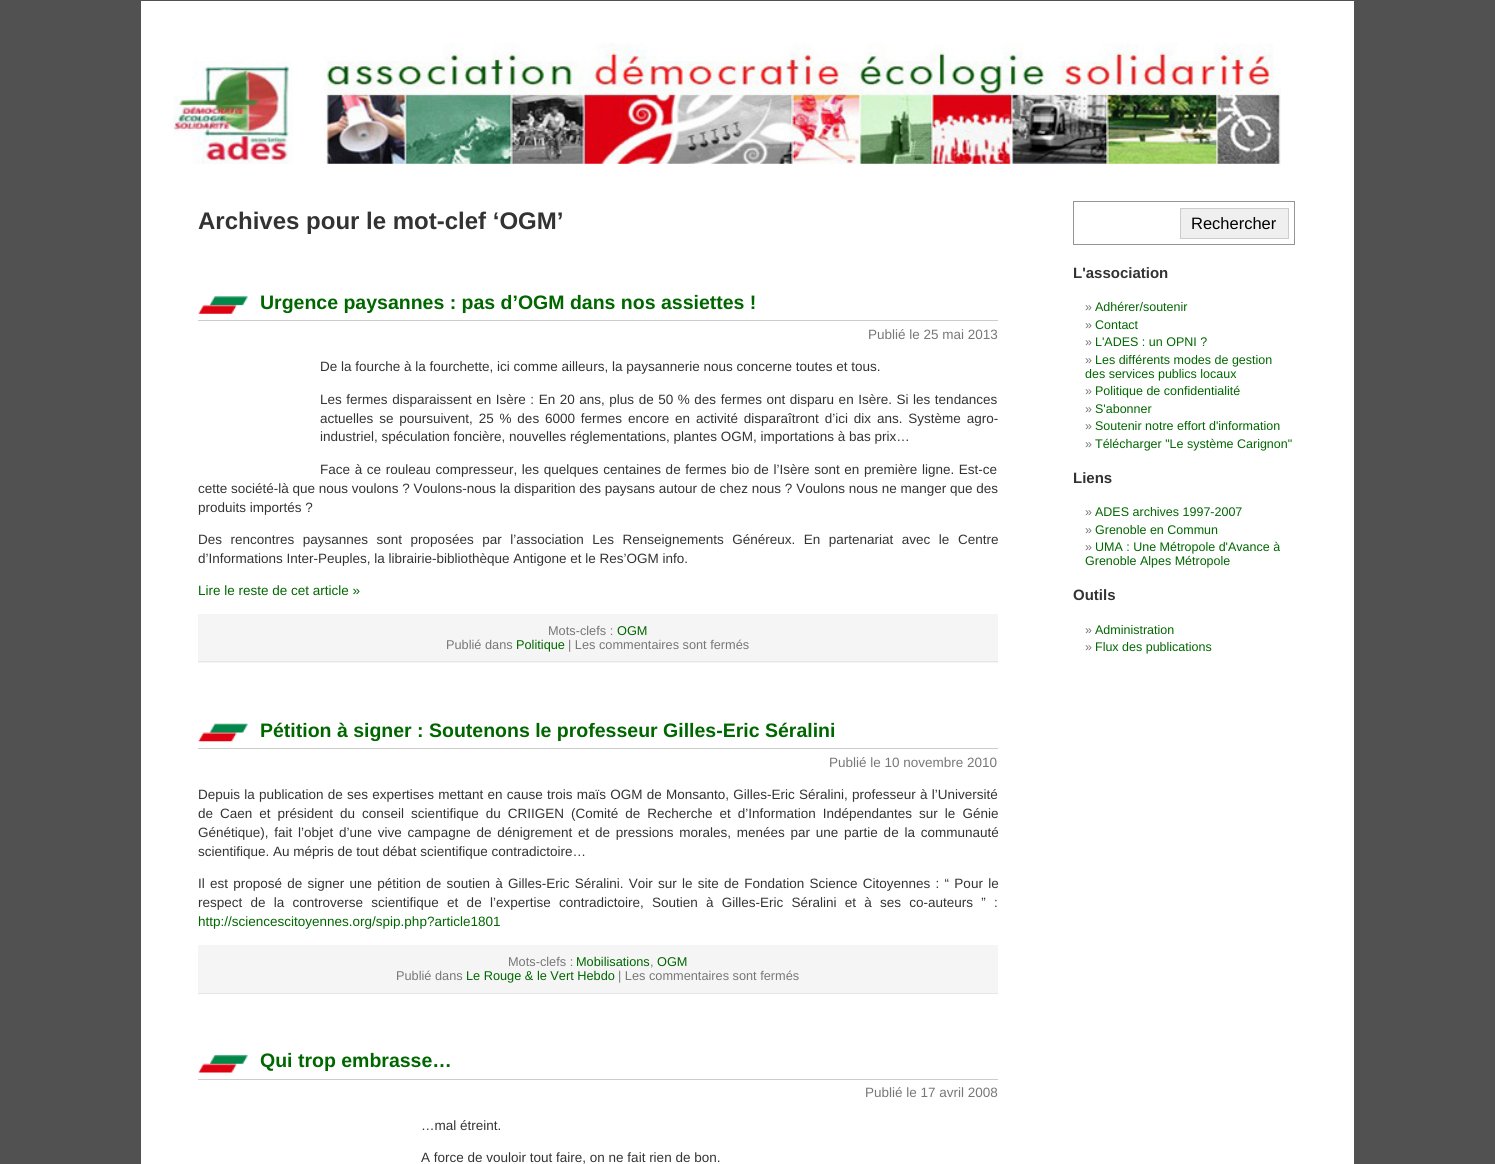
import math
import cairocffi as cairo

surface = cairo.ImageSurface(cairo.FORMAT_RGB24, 1495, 1164)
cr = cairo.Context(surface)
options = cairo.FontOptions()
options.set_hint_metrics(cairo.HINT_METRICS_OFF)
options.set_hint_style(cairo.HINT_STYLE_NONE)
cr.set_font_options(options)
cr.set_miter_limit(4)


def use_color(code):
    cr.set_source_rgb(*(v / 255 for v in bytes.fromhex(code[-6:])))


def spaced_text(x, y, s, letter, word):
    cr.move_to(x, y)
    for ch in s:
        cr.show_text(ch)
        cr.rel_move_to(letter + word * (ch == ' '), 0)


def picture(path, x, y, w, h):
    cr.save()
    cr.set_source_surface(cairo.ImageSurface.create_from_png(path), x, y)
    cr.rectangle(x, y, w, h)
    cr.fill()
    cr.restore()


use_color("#515151")
cr.paint()
use_color("#ffffff")
cr.rectangle(141, 1, 1213, 1163)
cr.fill()
picture("img1.png", 173, 42, 1108, 122)
cr.select_font_face("Liberation Sans", cairo.FONT_SLANT_NORMAL, cairo.FONT_WEIGHT_BOLD)
cr.set_font_size(24)
use_color("#333333")
cr.move_to(198, 229)
cr.show_text("Archives pour le mot-clef ‘OGM’")
picture("img2.png", 198, 296, 50, 18)
cr.set_font_size(19.5)
use_color("#006600")
cr.move_to(260, 309)
cr.show_text("Urgence paysannes : pas d’OGM dans nos assiettes !")
use_color("#cccccc")
cr.rectangle(198, 320, 800, 1)
cr.fill()
cr.select_font_face("Liberation Sans")
cr.set_font_size(13.5)
use_color("#777777")
cr.move_to(868, 339)
cr.show_text("Publié le 25 mai 2013")
use_color("#333333")
cr.move_to(320, 371)
cr.show_text("De la fourche à la fourchette, ici comme ailleurs, la paysannerie nous concerne toutes et tous.")
spaced_text(320, 404, "Les fermes disparaissent en Isère : En 20 ans, plus de 50 % des fermes ont disparu en Isère. Si les tendances", 0, 0.8)
spaced_text(320, 423, "actuelles se poursuivent, 25 % des 6000 fermes encore en activité disparaîtront d’ici dix ans. Système agro-", 0, 2.1)
cr.move_to(320, 441)
cr.show_text("industriel, spéculation foncière, nouvelles réglementations, plantes OGM, importations à bas prix…")
spaced_text(320, 474, "Face à ce rouleau compresseur, les quelques centaines de fermes bio de l’Isère sont en première ligne. Est-ce", 0, 0.9)
cr.move_to(198, 493)
cr.show_text("cette société-là que nous voulons ? Voulons-nous la disparition des paysans autour de chez nous ? Voulons nous ne manger que des")
cr.move_to(198, 512)
cr.show_text("produits importés ?")
spaced_text(198, 544, "Des rencontres paysannes sont proposées par l’association Les Renseignements Généreux. En partenariat avec le Centre", 0, 4.75)
cr.move_to(198, 563)
cr.show_text("d’Informations Inter-Peuples, la librairie-bibliothèque Antigone et le Res’OGM info.")
use_color("#006600")
cr.move_to(198, 595)
cr.show_text("Lire le reste de cet article »")
use_color("#f5f5f5")
cr.rectangle(198, 614, 800, 49)
cr.fill()
use_color("#e6e6e6")
cr.rectangle(198, 661, 800, 1)
cr.fill()
cr.set_font_size(12.75)
use_color("#777777")
cr.move_to(548, 635)
cr.show_text("Mots-clefs :")
use_color("#006600")
cr.move_to(617, 635)
cr.show_text("OGM")
use_color("#777777")
cr.move_to(446, 649)
cr.show_text("Publié dans")
use_color("#006600")
cr.move_to(516, 649)
cr.show_text("Politique")
use_color("#777777")
cr.move_to(568, 649)
cr.show_text("| Les commentaires sont fermés")
picture("img3.png", 198, 723, 50, 19)
cr.select_font_face("Liberation Sans", cairo.FONT_SLANT_NORMAL, cairo.FONT_WEIGHT_BOLD)
cr.set_font_size(19.5)
use_color("#006600")
cr.move_to(260, 737)
cr.show_text("Pétition à signer : Soutenons le professeur Gilles-Eric Séralini")
use_color("#cccccc")
cr.rectangle(198, 748, 800, 1)
cr.fill()
cr.select_font_face("Liberation Sans")
cr.set_font_size(13.5)
use_color("#777777")
cr.move_to(829, 767)
cr.show_text("Publié le 10 novembre 2010")
use_color("#333333")
spaced_text(198, 799, "Depuis la publication de ses expertises mettant en cause trois maïs OGM de Monsanto, Gilles-Eric Séralini, professeur à l’Université", 0, 0.5)
spaced_text(198, 818, "de Caen et président du conseil scientifique du CRIIGEN (Comité de Recherche et d’Information Indépendantes sur le Génie", 0, 3.25)
spaced_text(198, 837, "Génétique), fait l’objet d’une vive campagne de dénigrement et de pressions morales, menées par une partie de la communauté", 0, 2)
cr.move_to(198, 856)
cr.show_text("scientifique. Au mépris de tout débat scientifique contradictoire…")
spaced_text(198, 888, "Il est proposé de signer une pétition de soutien à Gilles-Eric Séralini. Voir sur le site de Fondation Science Citoyennes : “ Pour le", 0, 1.5)
spaced_text(198, 907, "respect de la controverse scientifique et de l’expertise contradictoire, Soutien à Gilles-Eric Séralini et à ses co-auteurs ” :", 0, 4.5)
use_color("#006600")
cr.move_to(198, 926)
cr.show_text("http://sciencescitoyennes.org/spip.php?article1801")
use_color("#f5f5f5")
cr.rectangle(198, 945, 800, 48)
cr.fill()
use_color("#e6e6e6")
cr.rectangle(198, 993, 800, 1)
cr.fill()
cr.set_font_size(12.75)
use_color("#777777")
cr.move_to(508, 966)
cr.show_text("Mots-clefs :")
use_color("#006600")
cr.move_to(576, 966)
cr.show_text("Mobilisations")
use_color("#777777")
cr.move_to(650, 966)
cr.show_text(",")
use_color("#006600")
cr.move_to(657, 966)
cr.show_text("OGM")
use_color("#777777")
cr.move_to(396, 980)
cr.show_text("Publié dans")
use_color("#006600")
cr.move_to(466, 980)
cr.show_text("Le Rouge & le Vert Hebdo")
use_color("#777777")
cr.move_to(618, 980)
cr.show_text("| Les commentaires sont fermés")
picture("img4.png", 198, 1054, 50, 19)
cr.select_font_face("Liberation Sans", cairo.FONT_SLANT_NORMAL, cairo.FONT_WEIGHT_BOLD)
cr.set_font_size(19.5)
use_color("#006600")
cr.move_to(260, 1067)
cr.show_text("Qui trop embrasse…")
use_color("#cccccc")
cr.rectangle(198, 1079, 800, 1)
cr.fill()
cr.select_font_face("Liberation Sans")
cr.set_font_size(13.5)
use_color("#777777")
cr.move_to(865, 1097)
cr.show_text("Publié le 17 avril 2008")
use_color("#333333")
cr.move_to(421, 1130)
cr.show_text("…mal étreint.")
cr.move_to(421, 1162)
cr.show_text("A force de vouloir tout faire, on ne fait rien de bon.")
cr.rectangle(1073.5, 201.5, 221, 43)
use_color("#949494")
cr.set_line_width(1)
cr.stroke()
use_color("#efefef")
cr.rectangle(1180.5, 208.5, 108, 30)
cr.fill_preserve()
use_color("#cccccc")
cr.stroke()
cr.set_font_size(16.5)
use_color("#000000")
cr.move_to(1191, 229)
cr.show_text("Rechercher")
cr.select_font_face("Liberation Sans", cairo.FONT_SLANT_NORMAL, cairo.FONT_WEIGHT_BOLD)
cr.set_font_size(15)
use_color("#333333")
cr.move_to(1073, 278)
cr.show_text("L'association")
cr.select_font_face("Liberation Sans")
cr.set_font_size(12.5)
use_color("#777777")
cr.move_to(1085, 311)
cr.show_text("»")
use_color("#006600")
cr.move_to(1095, 311)
cr.show_text("Adhérer/soutenir")
use_color("#777777")
cr.move_to(1085, 329)
cr.show_text("»")
use_color("#006600")
cr.move_to(1095, 329)
cr.show_text("Contact")
use_color("#777777")
cr.move_to(1085, 346)
cr.show_text("»")
use_color("#006600")
cr.move_to(1095, 346)
cr.show_text("L'ADES : un OPNI ?")
use_color("#777777")
cr.move_to(1085, 364)
cr.show_text("»")
use_color("#006600")
cr.move_to(1095, 364)
cr.show_text("Les différents modes de gestion")
cr.move_to(1085, 378)
cr.show_text("des services publics locaux")
use_color("#777777")
cr.move_to(1085, 395)
cr.show_text("»")
use_color("#006600")
cr.move_to(1095, 395)
cr.show_text("Politique de confidentialité")
use_color("#777777")
cr.move_to(1085, 413)
cr.show_text("»")
use_color("#006600")
cr.move_to(1095, 413)
cr.show_text("S'abonner")
use_color("#777777")
cr.move_to(1085, 430)
cr.show_text("»")
use_color("#006600")
cr.move_to(1095, 430)
cr.show_text("Soutenir notre effort d'information")
use_color("#777777")
cr.move_to(1085, 448)
cr.show_text("»")
use_color("#006600")
cr.move_to(1095, 448)
cr.show_text("Télécharger \"Le système Carignon\"")
cr.select_font_face("Liberation Sans", cairo.FONT_SLANT_NORMAL, cairo.FONT_WEIGHT_BOLD)
cr.set_font_size(15)
use_color("#333333")
cr.move_to(1073, 483)
cr.show_text("Liens")
cr.select_font_face("Liberation Sans")
cr.set_font_size(12.5)
use_color("#777777")
cr.move_to(1085, 516)
cr.show_text("»")
use_color("#006600")
cr.move_to(1095, 516)
cr.show_text("ADES archives 1997-2007")
use_color("#777777")
cr.move_to(1085, 534)
cr.show_text("»")
use_color("#006600")
cr.move_to(1095, 534)
cr.show_text("Grenoble en Commun")
use_color("#777777")
cr.move_to(1085, 551)
cr.show_text("»")
use_color("#006600")
cr.move_to(1095, 551)
cr.show_text("UMA : Une Métropole d'Avance à")
cr.move_to(1085, 565)
cr.show_text("Grenoble Alpes Métropole")
cr.select_font_face("Liberation Sans", cairo.FONT_SLANT_NORMAL, cairo.FONT_WEIGHT_BOLD)
cr.set_font_size(15)
use_color("#333333")
cr.move_to(1073, 600)
cr.show_text("Outils")
cr.select_font_face("Liberation Sans")
cr.set_font_size(12.5)
use_color("#777777")
cr.move_to(1085, 634)
cr.show_text("»")
use_color("#006600")
cr.move_to(1095, 634)
cr.show_text("Administration")
use_color("#777777")
cr.move_to(1085, 651)
cr.show_text("»")
use_color("#006600")
cr.move_to(1095, 651)
cr.show_text("Flux des publications")
surface.write_to_png("result.png")
